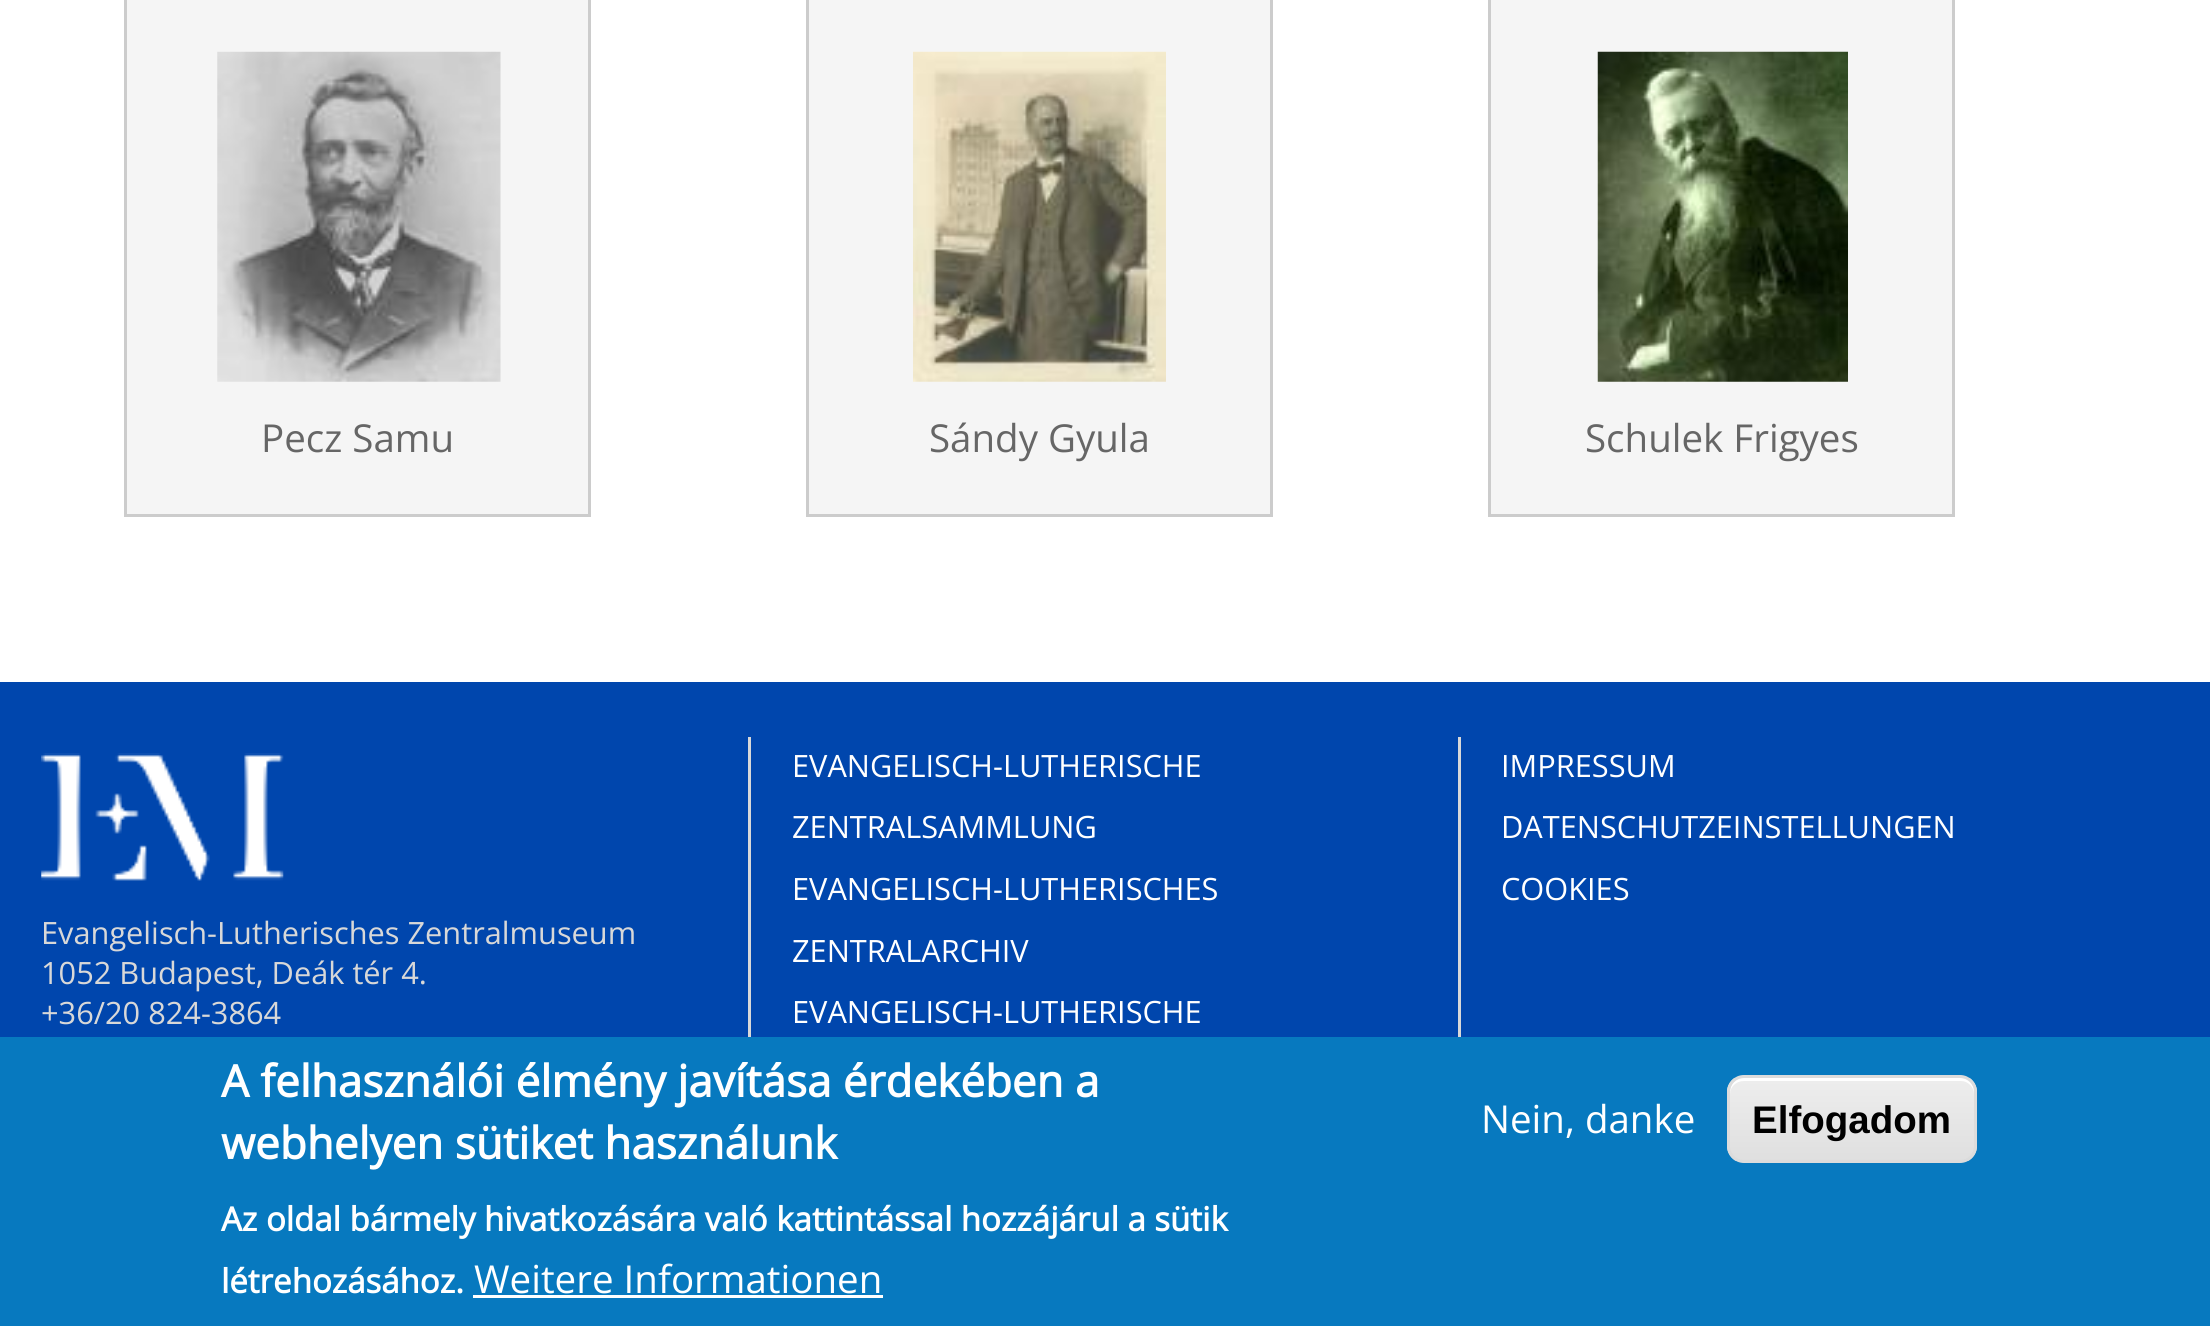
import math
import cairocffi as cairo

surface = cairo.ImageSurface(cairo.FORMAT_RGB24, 2210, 1326)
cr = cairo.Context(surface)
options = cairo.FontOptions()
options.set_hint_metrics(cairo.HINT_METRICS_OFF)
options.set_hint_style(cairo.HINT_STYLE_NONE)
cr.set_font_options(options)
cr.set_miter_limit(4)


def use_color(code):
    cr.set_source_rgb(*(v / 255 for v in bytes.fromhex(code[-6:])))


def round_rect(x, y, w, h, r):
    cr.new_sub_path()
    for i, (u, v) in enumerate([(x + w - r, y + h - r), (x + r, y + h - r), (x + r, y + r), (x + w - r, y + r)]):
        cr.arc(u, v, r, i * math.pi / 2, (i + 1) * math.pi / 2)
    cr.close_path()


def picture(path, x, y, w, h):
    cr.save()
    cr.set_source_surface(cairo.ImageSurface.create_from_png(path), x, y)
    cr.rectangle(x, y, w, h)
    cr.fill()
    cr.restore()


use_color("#ffffff")
cr.paint()
use_color("#f5f5f5")
cr.rectangle(125.5, -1.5, 464, 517)
cr.fill_preserve()
use_color("#cccccc")
cr.set_line_width(3)
cr.stroke()
picture("img1.png", 217, 51, 284, 331)
cr.select_font_face("Open Sans")
cr.set_font_size(38.5)
use_color("#666666")
cr.move_to(261, 452)
cr.show_text("Pecz Samu")
use_color("#f5f5f5")
cr.rectangle(807.5, -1.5, 464, 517)
cr.fill_preserve()
use_color("#cccccc")
cr.stroke()
picture("img2.png", 913, 51, 253, 331)
use_color("#666666")
cr.move_to(929, 452)
cr.show_text("Sándy Gyula")
use_color("#f5f5f5")
cr.rectangle(1489.5, -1.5, 464, 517)
cr.fill_preserve()
use_color("#cccccc")
cr.stroke()
picture("img3.png", 1597, 51, 251, 331)
use_color("#666666")
cr.move_to(1585, 452)
cr.show_text("Schulek Frigyes")
use_color("#0046ad")
cr.rectangle(0, 682, 2210, 355)
cr.fill()
use_color("#d8d8d8")
cr.rectangle(1458, 737, 3, 300)
cr.fill()
cr.set_font_size(30.75)
use_color("#ffffff")
cr.move_to(792, 777)
cr.show_text("EVANGELISCH-LUTHERISCHE")
cr.move_to(792, 838)
cr.show_text("ZENTRALSAMMLUNG")
cr.move_to(792, 900)
cr.show_text("EVANGELISCH-LUTHERISCHES")
cr.move_to(792, 962)
cr.show_text("ZENTRALARCHIV")
cr.move_to(792, 1023)
cr.show_text("EVANGELISCH-LUTHERISCHE")
cr.move_to(1501, 777)
cr.show_text("IMPRESSUM")
cr.move_to(1501, 838)
cr.show_text("DATENSCHUTZEINSTELLUNGEN")
cr.move_to(1501, 900)
cr.show_text("COOKIES")
use_color("#d8d8d8")
cr.rectangle(748, 737, 3, 300)
cr.fill()
picture("img4.png", 41, 753, 243, 128)
cr.move_to(41, 944)
cr.show_text("Evangelisch-Lutherisches Zentralmuseum")
cr.move_to(41, 984)
cr.show_text("1052 Budapest, Deák tér 4.")
cr.move_to(41, 1024)
cr.show_text("+36/20 824-3864")
use_color("#0779bf")
cr.rectangle(0, 1037, 2210, 289)
cr.fill()
cr.select_font_face("Open Sans", cairo.FONT_SLANT_NORMAL, cairo.FONT_WEIGHT_BOLD)
cr.set_font_size(44)
use_color("#ffffff")
cr.move_to(221, 1097)
cr.show_text("A felhasználói élmény javítása érdekében a")
cr.move_to(221, 1159)
cr.show_text("webhelyen sütiket használunk")
cr.set_font_size(33)
cr.move_to(221, 1231)
cr.show_text("Az oldal bármely hivatkozására való kattintással hozzájárul a sütik")
cr.move_to(221, 1293)
cr.show_text("létrehozásához.")
cr.select_font_face("Open Sans")
cr.set_font_size(38.5)
cr.move_to(474, 1293)
cr.show_text("Weitere Informationen")
cr.rectangle(473, 1295, 410, 3)
cr.fill()
cr.move_to(1481, 1133)
cr.show_text("Nein, danke")
cr.save()
round_rect(1727, 1075, 250, 88, 17)
cr.clip()
gradient = cairo.LinearGradient(1852, 1078, 1852, 1161)
gradient.add_color_stop_rgba(0.05, 0.929, 0.929, 0.929, 1)
gradient.add_color_stop_rgba(1, 0.875, 0.875, 0.875, 1)
cr.set_source(gradient)
cr.rectangle(1727, 1078, 250, 83)
cr.fill()
cr.restore()
cr.new_path()
cr.move_to(1744, 1081)
cr.line_to(1961, 1081)
cr.curve_to(1968, 1081, 1974, 1087, 1974, 1094)
cr.line_to(1974, 1150)
cr.line_to(1974, 1153)
cr.curve_to(1974, 1151, 1975, 1149, 1975, 1147)
cr.line_to(1975, 1092)
cr.curve_to(1975, 1084, 1969, 1078, 1961, 1078)
cr.line_to(1744, 1078)
cr.curve_to(1736, 1078, 1730, 1084, 1730, 1092)
cr.line_to(1730, 1094)
cr.curve_to(1730, 1087, 1736, 1081, 1744, 1081)
cr.close_path()
cr.fill()
round_rect(1728.5, 1076.5, 247, 85, 15.5)
use_color("#dcdcdc")
cr.stroke()
cr.select_font_face("Liberation Sans", cairo.FONT_SLANT_NORMAL, cairo.FONT_WEIGHT_BOLD)
use_color("#000000")
cr.move_to(1752, 1133)
cr.show_text("Elfogadom")
surface.write_to_png("result.png")
